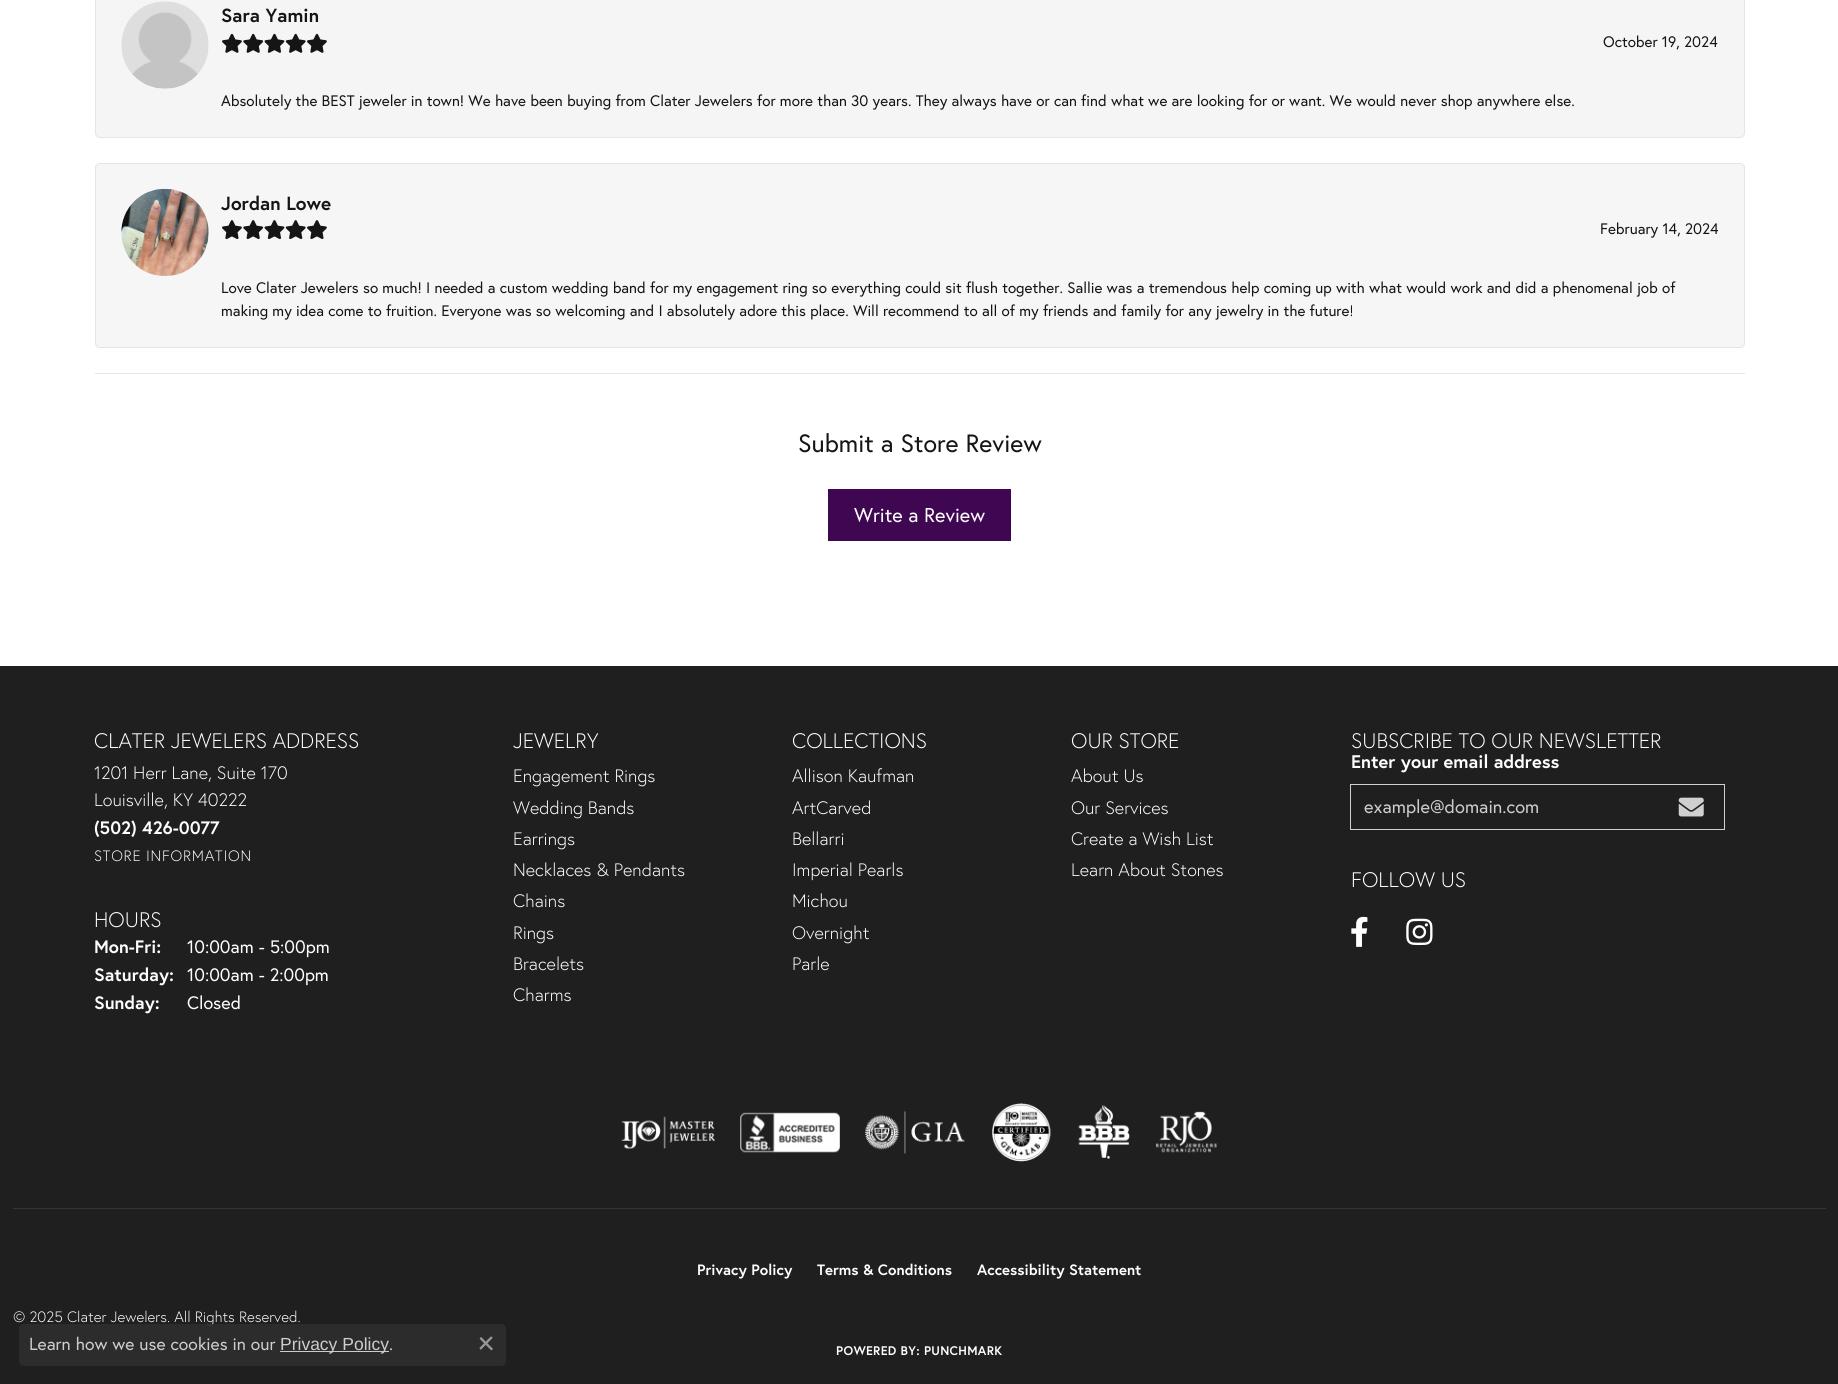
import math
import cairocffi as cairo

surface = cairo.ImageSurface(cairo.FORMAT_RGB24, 1838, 1384)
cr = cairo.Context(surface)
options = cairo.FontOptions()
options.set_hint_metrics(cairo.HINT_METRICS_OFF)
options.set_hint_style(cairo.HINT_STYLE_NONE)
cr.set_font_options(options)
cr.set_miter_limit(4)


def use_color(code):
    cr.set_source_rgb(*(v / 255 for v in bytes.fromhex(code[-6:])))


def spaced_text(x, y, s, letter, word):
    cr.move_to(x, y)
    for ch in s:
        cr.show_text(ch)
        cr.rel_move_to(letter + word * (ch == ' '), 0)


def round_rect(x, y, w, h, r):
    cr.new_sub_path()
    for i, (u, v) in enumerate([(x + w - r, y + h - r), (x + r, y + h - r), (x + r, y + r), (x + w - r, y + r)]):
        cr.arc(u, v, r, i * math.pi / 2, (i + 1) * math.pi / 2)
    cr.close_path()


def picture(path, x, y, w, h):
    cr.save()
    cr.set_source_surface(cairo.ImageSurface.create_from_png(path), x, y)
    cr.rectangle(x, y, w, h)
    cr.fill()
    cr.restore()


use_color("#ffffff")
cr.paint()
use_color("#e5e5e5")
cr.rectangle(95, 373, 1650, 1)
cr.fill()
use_color("#f5f5f5")
round_rect(95.5, -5.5, 1649, 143, 4.5)
cr.fill_preserve()
use_color("#e5e5e5")
cr.set_line_width(1)
cr.stroke()
picture("img1.png", 121, 1, 88, 88)
cr.select_font_face("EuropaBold", cairo.FONT_SLANT_NORMAL, cairo.FONT_WEIGHT_BOLD)
cr.set_font_size(19)
use_color("#151515")
cr.move_to(221, 22)
cr.show_text("Sara Yamin")
picture("img2.png", 222, 33, 20, 20)
picture("img3.png", 243, 33, 21, 20)
picture("img4.png", 264, 33, 21, 20)
picture("img5.png", 285, 33, 21, 20)
picture("img2.png", 307, 33, 20, 20)
cr.select_font_face("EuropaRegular")
cr.set_font_size(15.2)
cr.move_to(1603, 47)
cr.show_text("October 19, 2024")
cr.move_to(221, 106)
cr.show_text("Absolutely the BEST jeweler in town! We have been buying from Clater Jewelers for more than 30 years. They always have or can find what we are looking for or want. We would never shop anywhere else.")
use_color("#f6f6f6")
round_rect(95.5, 163.5, 1649, 184, 4.5)
cr.fill_preserve()
use_color("#e5e5e5")
cr.stroke()
picture("img6.png", 121, 188, 88, 89)
cr.select_font_face("EuropaBold", cairo.FONT_SLANT_NORMAL, cairo.FONT_WEIGHT_BOLD)
cr.set_font_size(19)
use_color("#151515")
cr.move_to(221, 210)
cr.show_text("Jordan Lowe")
picture("img7.png", 222, 220, 20, 20)
picture("img8.png", 243, 220, 21, 20)
picture("img9.png", 264, 220, 21, 20)
picture("img10.png", 285, 220, 21, 20)
picture("img7.png", 307, 220, 20, 20)
cr.select_font_face("EuropaRegular")
cr.set_font_size(15.2)
cr.move_to(1600, 234)
cr.show_text("February 14, 2024")
cr.move_to(221, 293)
cr.show_text("Love Clater Jewelers so much! I needed a custom wedding band for my engagement ring so everything could sit flush together. Sallie was a tremendous help coming up with what would work and did a phenomenal job of")
cr.move_to(221, 316)
cr.show_text("making my idea come to fruition. Everyone was so welcoming and I absolutely adore this place. Will recommend to all of my friends and family for any jewelry in the future!")
cr.set_font_size(25)
cr.move_to(798, 452)
cr.show_text("Submit a Store Review")
use_color("#3f0752")
cr.rectangle(828, 489, 183, 52)
cr.fill()
cr.set_font_size(20)
use_color("#fefefe")
cr.move_to(854, 522)
cr.show_text("Write a Review")
use_color("#1f1f1f")
cr.rectangle(0, 666, 1838, 718)
cr.fill()
cr.select_font_face("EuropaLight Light")
cr.set_font_size(21)
use_color("#fefefe")
cr.move_to(94, 748)
cr.show_text("CLATER JEWELERS ADDRESS")
cr.set_font_size(18)
cr.move_to(94, 779)
cr.show_text("1201 Herr Lane, Suite 170")
cr.move_to(94, 806)
cr.show_text("Louisville, KY 40222")
cr.select_font_face("EuropaBold", cairo.FONT_SLANT_NORMAL, cairo.FONT_WEIGHT_BOLD)
cr.move_to(94, 834)
cr.show_text("(502) 426-0077")
cr.select_font_face("EuropaLight Light")
cr.set_font_size(15)
spaced_text(94, 861, "STORE INFORMATION", 0.75, 0)
cr.set_font_size(21)
cr.move_to(94, 927)
cr.show_text("HOURS")
cr.select_font_face("EuropaBold", cairo.FONT_SLANT_NORMAL, cairo.FONT_WEIGHT_BOLD)
cr.set_font_size(18)
cr.move_to(94, 953)
cr.show_text("Mon-Fri:")
cr.select_font_face("EuropaRegular")
cr.move_to(187, 953)
cr.show_text("10:00am - 5:00pm")
cr.select_font_face("EuropaBold", cairo.FONT_SLANT_NORMAL, cairo.FONT_WEIGHT_BOLD)
cr.move_to(94, 981)
cr.show_text("Saturday:")
cr.select_font_face("EuropaRegular")
cr.move_to(187, 981)
cr.show_text("10:00am - 2:00pm")
cr.select_font_face("EuropaBold", cairo.FONT_SLANT_NORMAL, cairo.FONT_WEIGHT_BOLD)
cr.move_to(94, 1009)
cr.show_text("Sunday:")
cr.select_font_face("EuropaRegular")
cr.move_to(187, 1009)
cr.show_text("Closed")
cr.select_font_face("EuropaLight Light")
cr.set_font_size(21)
cr.move_to(513, 748)
cr.show_text("JEWELRY")
cr.set_font_size(18)
cr.move_to(513, 782)
cr.show_text("Engagement Rings")
cr.move_to(513, 814)
cr.show_text("Wedding Bands")
cr.move_to(513, 845)
cr.show_text("Earrings")
cr.move_to(513, 876)
cr.show_text("Necklaces & Pendants")
cr.move_to(513, 907)
cr.show_text("Chains")
cr.move_to(513, 939)
cr.show_text("Rings")
cr.move_to(513, 970)
cr.show_text("Bracelets")
cr.move_to(513, 1001)
cr.show_text("Charms")
cr.set_font_size(21)
cr.move_to(792, 748)
cr.show_text("COLLECTIONS")
cr.set_font_size(18)
cr.move_to(792, 782)
cr.show_text("Allison Kaufman")
cr.move_to(792, 814)
cr.show_text("ArtCarved")
cr.move_to(792, 845)
cr.show_text("Bellarri")
cr.move_to(792, 876)
cr.show_text("Imperial Pearls")
cr.move_to(792, 907)
cr.show_text("Michou")
cr.move_to(792, 939)
cr.show_text("Overnight")
cr.move_to(792, 970)
cr.show_text("Parle")
cr.set_font_size(21)
cr.move_to(1071, 748)
cr.show_text("OUR STORE")
cr.set_font_size(18)
cr.move_to(1071, 782)
cr.show_text("About Us")
cr.move_to(1071, 814)
cr.show_text("Our Services")
cr.move_to(1071, 845)
cr.show_text("Create a Wish List")
cr.move_to(1071, 876)
cr.show_text("Learn About Stones")
cr.set_font_size(21)
cr.move_to(1351, 748)
cr.show_text("SUBSCRIBE TO OUR NEWSLETTER")
cr.select_font_face("EuropaBold", cairo.FONT_SLANT_NORMAL, cairo.FONT_WEIGHT_BOLD)
cr.set_font_size(18.25)
cr.move_to(1351, 768)
cr.show_text("Enter your email address")
cr.rectangle(1350.5, 784.5, 374, 45)
use_color("#d0d0d0")
cr.stroke()
cr.select_font_face("EuropaRegular")
use_color("#cdcdcd")
cr.move_to(1364, 813)
cr.show_text("example@domain.com")
picture("img11.png", 1678, 797, 26, 20)
cr.select_font_face("EuropaLight Light")
cr.set_font_size(21)
use_color("#fefefe")
cr.move_to(1351, 887)
cr.show_text("FOLLOW US")
picture("img12.png", 1351, 916, 17, 31)
picture("img13.png", 1406, 918, 27, 27)
picture("img14.png", 621, 1116, 94, 33)
picture("img15.png", 740, 1112, 100, 41)
picture("img16.png", 865, 1111, 100, 43)
picture("img17.png", 992, 1103, 59, 59)
picture("img18.png", 1078, 1105, 52, 54)
picture("img19.png", 1156, 1111, 61, 42)
use_color("#353535")
cr.rectangle(13, 1208, 1813, 1)
cr.fill()
cr.select_font_face("EuropaBold", cairo.FONT_SLANT_NORMAL, cairo.FONT_WEIGHT_BOLD)
cr.set_font_size(15)
use_color("#fefefe")
cr.move_to(697, 1275)
cr.show_text("Privacy Policy")
cr.move_to(817, 1275)
cr.show_text("Terms & Conditions")
cr.move_to(977, 1275)
cr.show_text("Accessibility Statement")
cr.select_font_face("EuropaLight Light")
cr.move_to(13, 1322)
cr.show_text("© 2025 Clater Jewelers. All Rights Reserved.")
cr.select_font_face("EuropaBold", cairo.FONT_SLANT_NORMAL, cairo.FONT_WEIGHT_BOLD)
cr.set_font_size(12.5)
spaced_text(836, 1355, "POWERED BY: PUNCHMARK", 0.3, 0)
cr.set_source_rgba(0.18, 0.18, 0.18, 0.9)
round_rect(19, 1324, 487, 42, 5)
cr.fill()
cr.select_font_face("EuropaRegular")
cr.set_font_size(17.5)
use_color("#cdcdcd")
cr.move_to(29, 1350)
cr.show_text("Learn how we use cookies in our")
use_color("#cccccc")
cr.rectangle(280, 1351, 109, 1)
cr.fill()
cr.select_font_face("Liberation Sans")
use_color("#cdcdcd")
cr.move_to(280, 1350)
cr.show_text("Privacy Policy")
cr.select_font_face("EuropaRegular")
cr.move_to(389, 1350)
cr.show_text(".")
picture("img20.png", 479, 1336, 14, 15)
surface.write_to_png("result.png")
